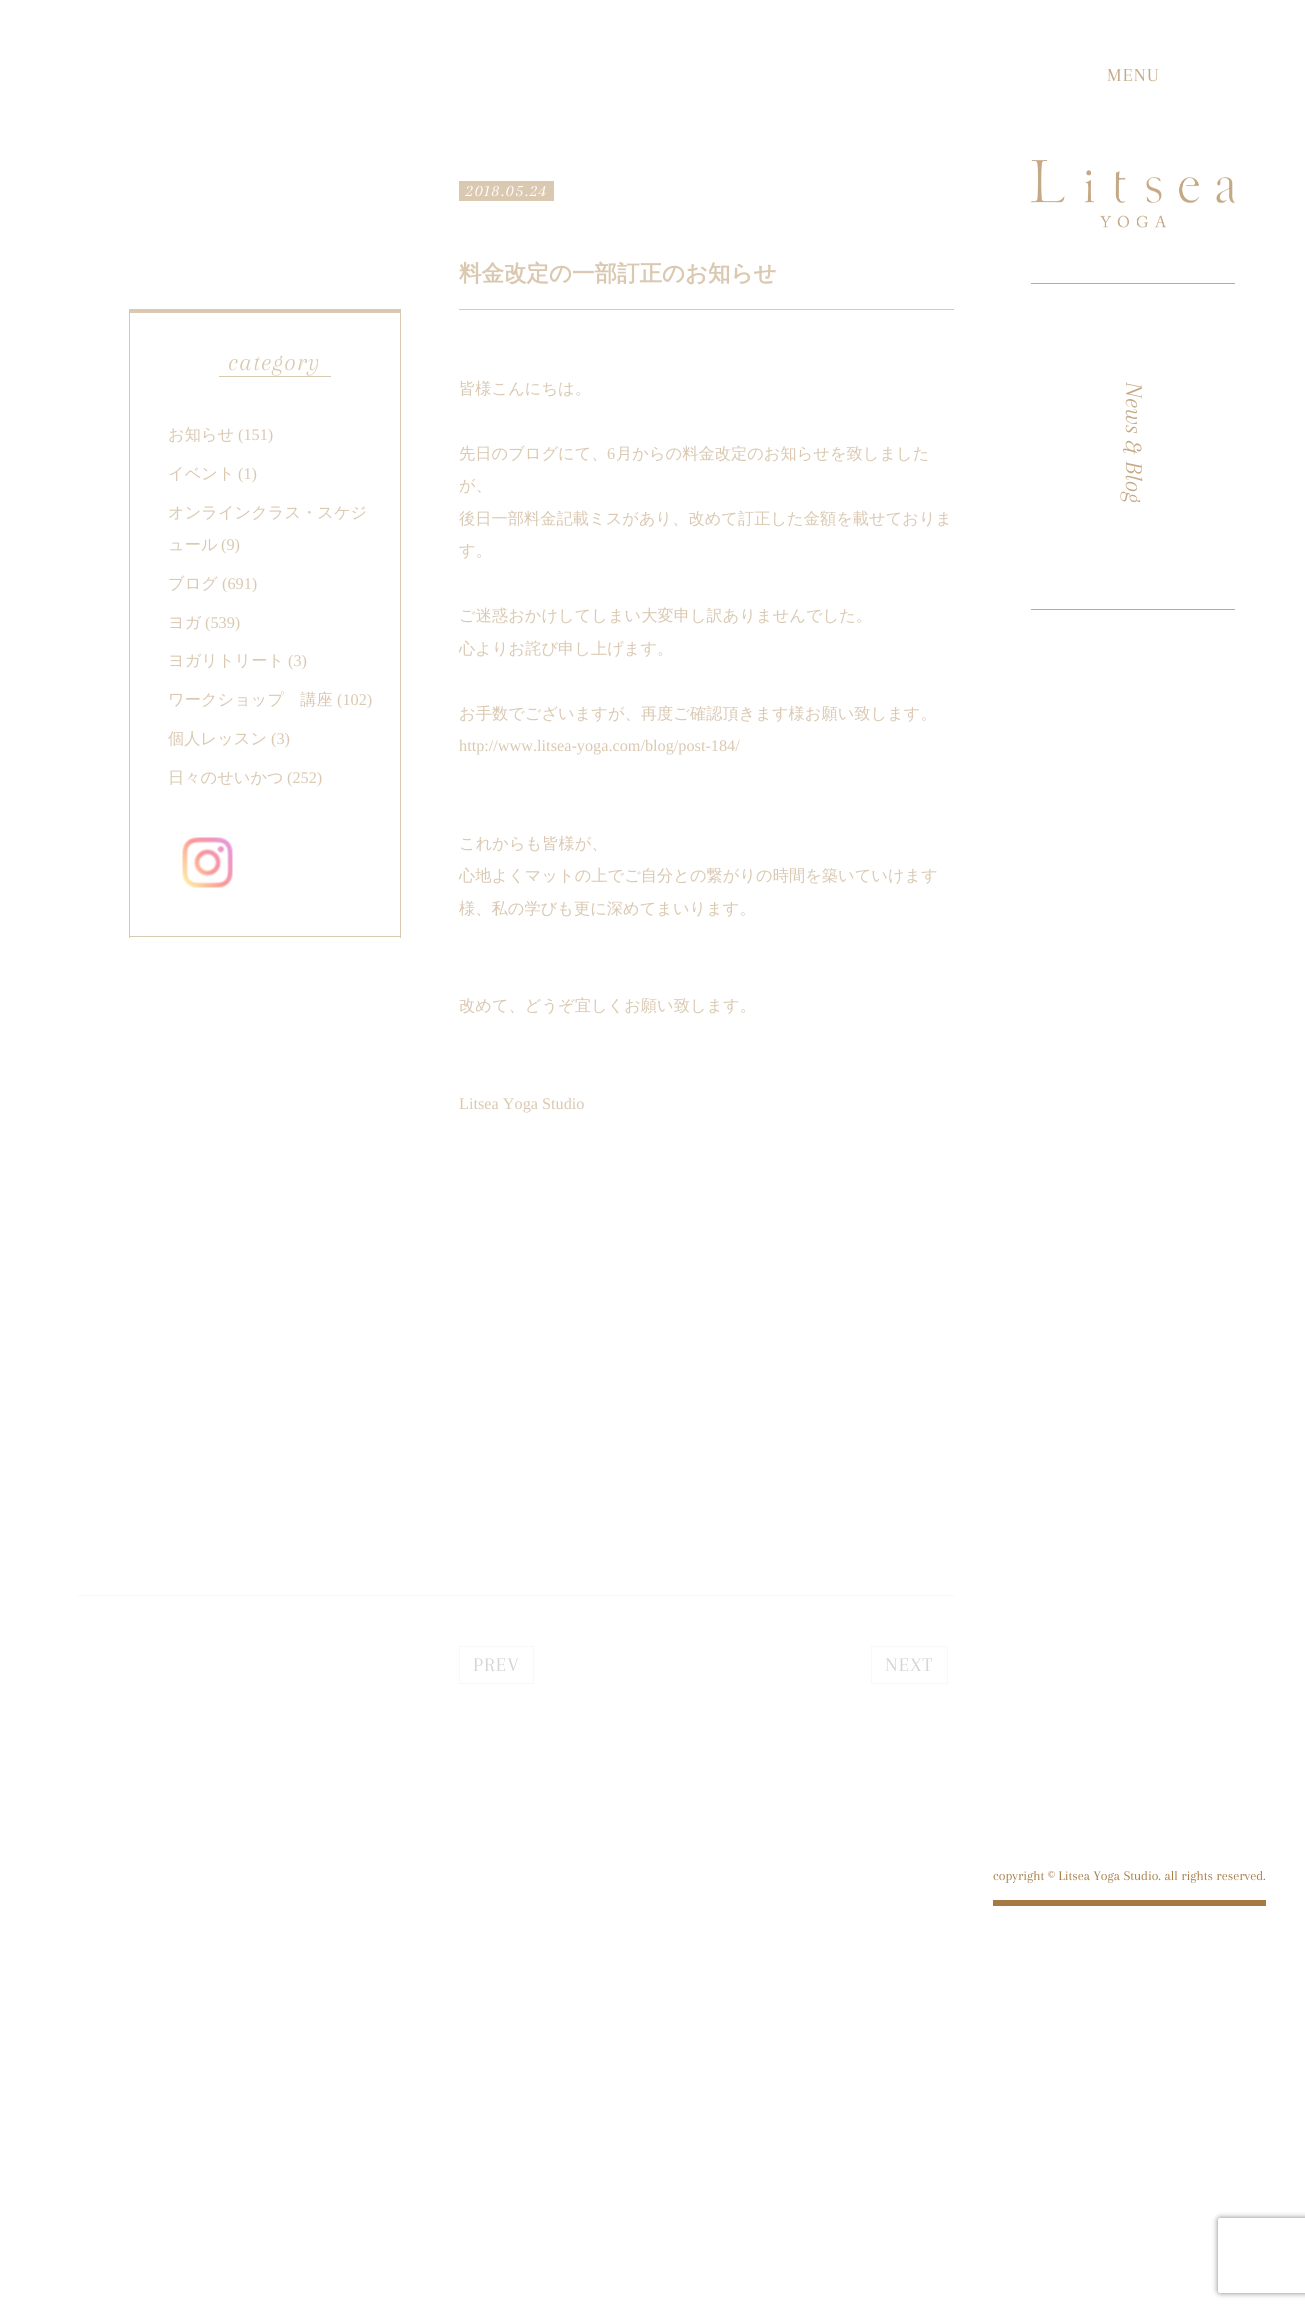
import math
import cairocffi as cairo

surface = cairo.ImageSurface(cairo.FORMAT_RGB24, 1305, 2310)
cr = cairo.Context(surface)
options = cairo.FontOptions()
options.set_hint_metrics(cairo.HINT_METRICS_OFF)
options.set_hint_style(cairo.HINT_STYLE_NONE)
cr.set_font_options(options)
cr.set_miter_limit(4)


def use_color(code):
    cr.set_source_rgb(*(v / 255 for v in bytes.fromhex(code[-6:])))


def spaced_text(x, y, s, letter, word):
    cr.move_to(x, y)
    for ch in s:
        cr.show_text(ch)
        cr.rel_move_to(letter + word * (ch == ' '), 0)


def round_rect(x, y, w, h, r):
    cr.new_sub_path()
    for i, (u, v) in enumerate([(x + w - r, y + h - r), (x + r, y + h - r), (x + r, y + r), (x + w - r, y + r)]):
        cr.arc(u, v, r, i * math.pi / 2, (i + 1) * math.pi / 2)
    cr.close_path()


def shadow(x, y, w, h, r, blur, alpha):
    cr.push_group_with_content(cairo.CONTENT_ALPHA)
    cr.set_operator(cairo.OPERATOR_SOURCE)
    for i in range(15, -16, -2):
        e = blur * i / 6
        if min(w, h) + 2 * e > 0:
            cr.set_source_rgba(0, 0, 0, alpha * math.erfc((i - 1) / 8.5) / 2)
            round_rect(x - e, y - e, w + 2 * e, h + 2 * e, max(0, min(r + e + blur * .6, min(w, h) / 2 + e)))
            cr.fill()
    cr.mask(cr.pop_group())


def picture(path, x, y, w, h):
    cr.save()
    cr.set_source_surface(cairo.ImageSurface.create_from_png(path), x, y)
    cr.rectangle(x, y, w, h)
    cr.fill()
    cr.restore()


use_color("#ffffff")
cr.paint()
use_color("#dac8b1")
cr.rectangle(129, 309, 272, 4)
cr.fill()
cr.rectangle(400, 309, 1, 629)
cr.fill()
cr.rectangle(129, 936, 272, 1)
cr.fill()
cr.rectangle(129, 309, 1, 629)
cr.fill()
cr.select_font_face("Arapey", cairo.FONT_SLANT_ITALIC)
cr.set_font_size(25)
spaced_text(228, 370, "category", 1.25, 0)
cr.rectangle(219, 376, 112, 1)
cr.fill()
cr.select_font_face("WenQuanYi Zen Hei Medium")
cr.set_font_size(16.25)
cr.move_to(168, 440)
cr.show_text("お知らせ")
cr.select_font_face("Liberation Serif")
cr.move_to(238, 440)
cr.show_text("(151)")
cr.select_font_face("WenQuanYi Zen Hei Medium")
cr.move_to(168, 479)
cr.show_text("イベント")
cr.select_font_face("Liberation Serif")
cr.move_to(238, 479)
cr.show_text("(1)")
cr.select_font_face("WenQuanYi Zen Hei Medium")
cr.move_to(168, 518)
cr.show_text("オンラインクラス・スケジ")
cr.move_to(168, 550)
cr.show_text("ュール")
cr.select_font_face("Liberation Serif")
cr.move_to(221, 550)
cr.show_text("(9)")
cr.select_font_face("WenQuanYi Zen Hei Medium")
cr.move_to(168, 589)
cr.show_text("ブログ")
cr.select_font_face("Liberation Serif")
cr.move_to(222, 589)
cr.show_text("(691)")
cr.select_font_face("WenQuanYi Zen Hei Medium")
cr.move_to(168, 628)
cr.show_text("ヨガ")
cr.select_font_face("Liberation Serif")
cr.move_to(205, 628)
cr.show_text("(539)")
cr.select_font_face("WenQuanYi Zen Hei Medium")
cr.move_to(168, 666)
cr.show_text("ヨガリトリート")
cr.select_font_face("Liberation Serif")
cr.move_to(288, 666)
cr.show_text("(3)")
cr.select_font_face("WenQuanYi Zen Hei Medium")
cr.move_to(168, 705)
cr.show_text("ワークショップ　講座")
cr.select_font_face("Liberation Serif")
cr.move_to(337, 705)
cr.show_text("(102)")
cr.select_font_face("WenQuanYi Zen Hei Medium")
cr.move_to(168, 744)
cr.show_text("個人レッスン")
cr.select_font_face("Liberation Serif")
cr.move_to(271, 744)
cr.show_text("(3)")
cr.select_font_face("WenQuanYi Zen Hei Medium")
cr.move_to(168, 783)
cr.show_text("日々のせいかつ")
cr.select_font_face("Liberation Serif")
cr.move_to(287, 783)
cr.show_text("(252)")
picture("img1.png", 182, 837, 51, 51)
cr.rectangle(459, 181, 95, 20)
cr.fill()
cr.select_font_face("Arapey", cairo.FONT_SLANT_ITALIC)
cr.set_font_size(17.5)
use_color("#ffffff")
spaced_text(465, 196, "2018.05.24", 1.25, 0)
use_color("#dac8b1")
cr.rectangle(459, 309, 495, 1)
cr.fill()
cr.select_font_face("WenQuanYi Zen Hei", cairo.FONT_SLANT_NORMAL, cairo.FONT_WEIGHT_BOLD)
cr.set_font_size(22.5)
cr.move_to(459, 281)
cr.show_text("料金改定の一部訂正のお知らせ")
cr.select_font_face("WenQuanYi Zen Hei Medium")
cr.set_font_size(16.25)
cr.move_to(459, 394)
cr.show_text("皆様こんにちは。")
cr.move_to(459, 459)
cr.show_text("先日のブログにて、")
cr.select_font_face("Liberation Serif")
cr.move_to(607, 459)
cr.show_text("6")
cr.select_font_face("WenQuanYi Zen Hei Medium")
cr.move_to(616, 459)
cr.show_text("月からの料金改定のお知らせを致しました")
cr.move_to(459, 491)
cr.show_text("が、")
cr.move_to(459, 524)
cr.show_text("後日一部料金記載ミスがあり、改めて訂正した金額を載せておりま")
cr.move_to(459, 556)
cr.show_text("す。")
cr.move_to(459, 621)
cr.show_text("ご迷惑おかけしてしまい大変申し訳ありませんでした。")
cr.move_to(459, 654)
cr.show_text("心よりお詫び申し上げます。")
cr.move_to(459, 719)
cr.show_text("お手数でございますが、再度ご確認頂きます様お願い致します。")
cr.select_font_face("Liberation Serif")
cr.move_to(459, 751)
cr.show_text("http://www.litsea-yoga.com/blog/post-184/")
cr.select_font_face("WenQuanYi Zen Hei Medium")
cr.move_to(459, 849)
cr.show_text("これからも皆様が、")
cr.move_to(459, 881)
cr.show_text("心地よくマットの上でご自分との繋がりの時間を築いていけます")
cr.move_to(459, 914)
cr.show_text("様、私の学びも更に深めてまいります。")
cr.move_to(459, 1011)
cr.show_text("改めて、どうぞ宜しくお願い致します。")
cr.select_font_face("Liberation Serif")
cr.move_to(459, 1109)
cr.show_text("Litsea Yoga Studio")
use_color("#f8f8f8")
cr.rectangle(78, 1595, 876, 1)
cr.fill()
cr.rectangle(459.5, 1646.5, 74, 37)
cr.set_line_width(1)
cr.stroke()
cr.select_font_face("Arapey")
cr.set_font_size(20)
use_color("#d5d5d5")
spaced_text(473, 1671, "PREV", 1.25, 0)
cr.rectangle(871.5, 1646.5, 76, 37)
use_color("#f8f8f8")
cr.stroke()
use_color("#d5d5d5")
spaced_text(885, 1671, "NEXT", 1.25, 0)
cr.set_font_size(19)
use_color("#c5a986")
spaced_text(1107, 81, "MENU", 1.25, 0)
cr.rectangle(1031, 283, 204, 1)
cr.fill()
picture("img2.png", 1031, 160, 204, 68)
cr.rectangle(1031, 609, 204, 1)
cr.fill()
cr.select_font_face("Arapey", cairo.FONT_SLANT_ITALIC)
cr.set_font_size(25)
cr.save()
cr.translate(1126, 382)
cr.rotate(90 * math.pi / 180)
cr.move_to(0, 0)
cr.show_text("News & Blog")
cr.restore()
use_color("#a57a43")
cr.rectangle(993, 1900, 273, 6)
cr.fill()
cr.select_font_face("Arapey")
cr.set_font_size(13.75)
cr.move_to(993, 1880)
cr.show_text("copyright © Litsea Yoga Studio. all rights reserved.")
cr.save()
cr.set_fill_rule(cairo.FILL_RULE_EVEN_ODD)
cr.new_path()
cr.move_to(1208, 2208)
cr.line_to(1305, 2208)
cr.line_to(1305, 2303)
cr.line_to(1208, 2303)
cr.close_path()
cr.move_to(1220.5, 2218)
cr.line_to(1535.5, 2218)
cr.curve_to(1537, 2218, 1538, 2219, 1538, 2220.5)
cr.line_to(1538, 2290.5)
cr.curve_to(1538, 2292, 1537, 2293, 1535.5, 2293)
cr.line_to(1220.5, 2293)
cr.curve_to(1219, 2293, 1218, 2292, 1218, 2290.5)
cr.line_to(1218, 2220.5)
cr.curve_to(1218, 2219, 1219, 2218, 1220.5, 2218)
cr.close_path()
cr.clip()
use_color("#808080")
shadow(1218, 2218, 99, 75, 2.5, 3, 1)
cr.restore()
surface.write_to_png("result.png")
